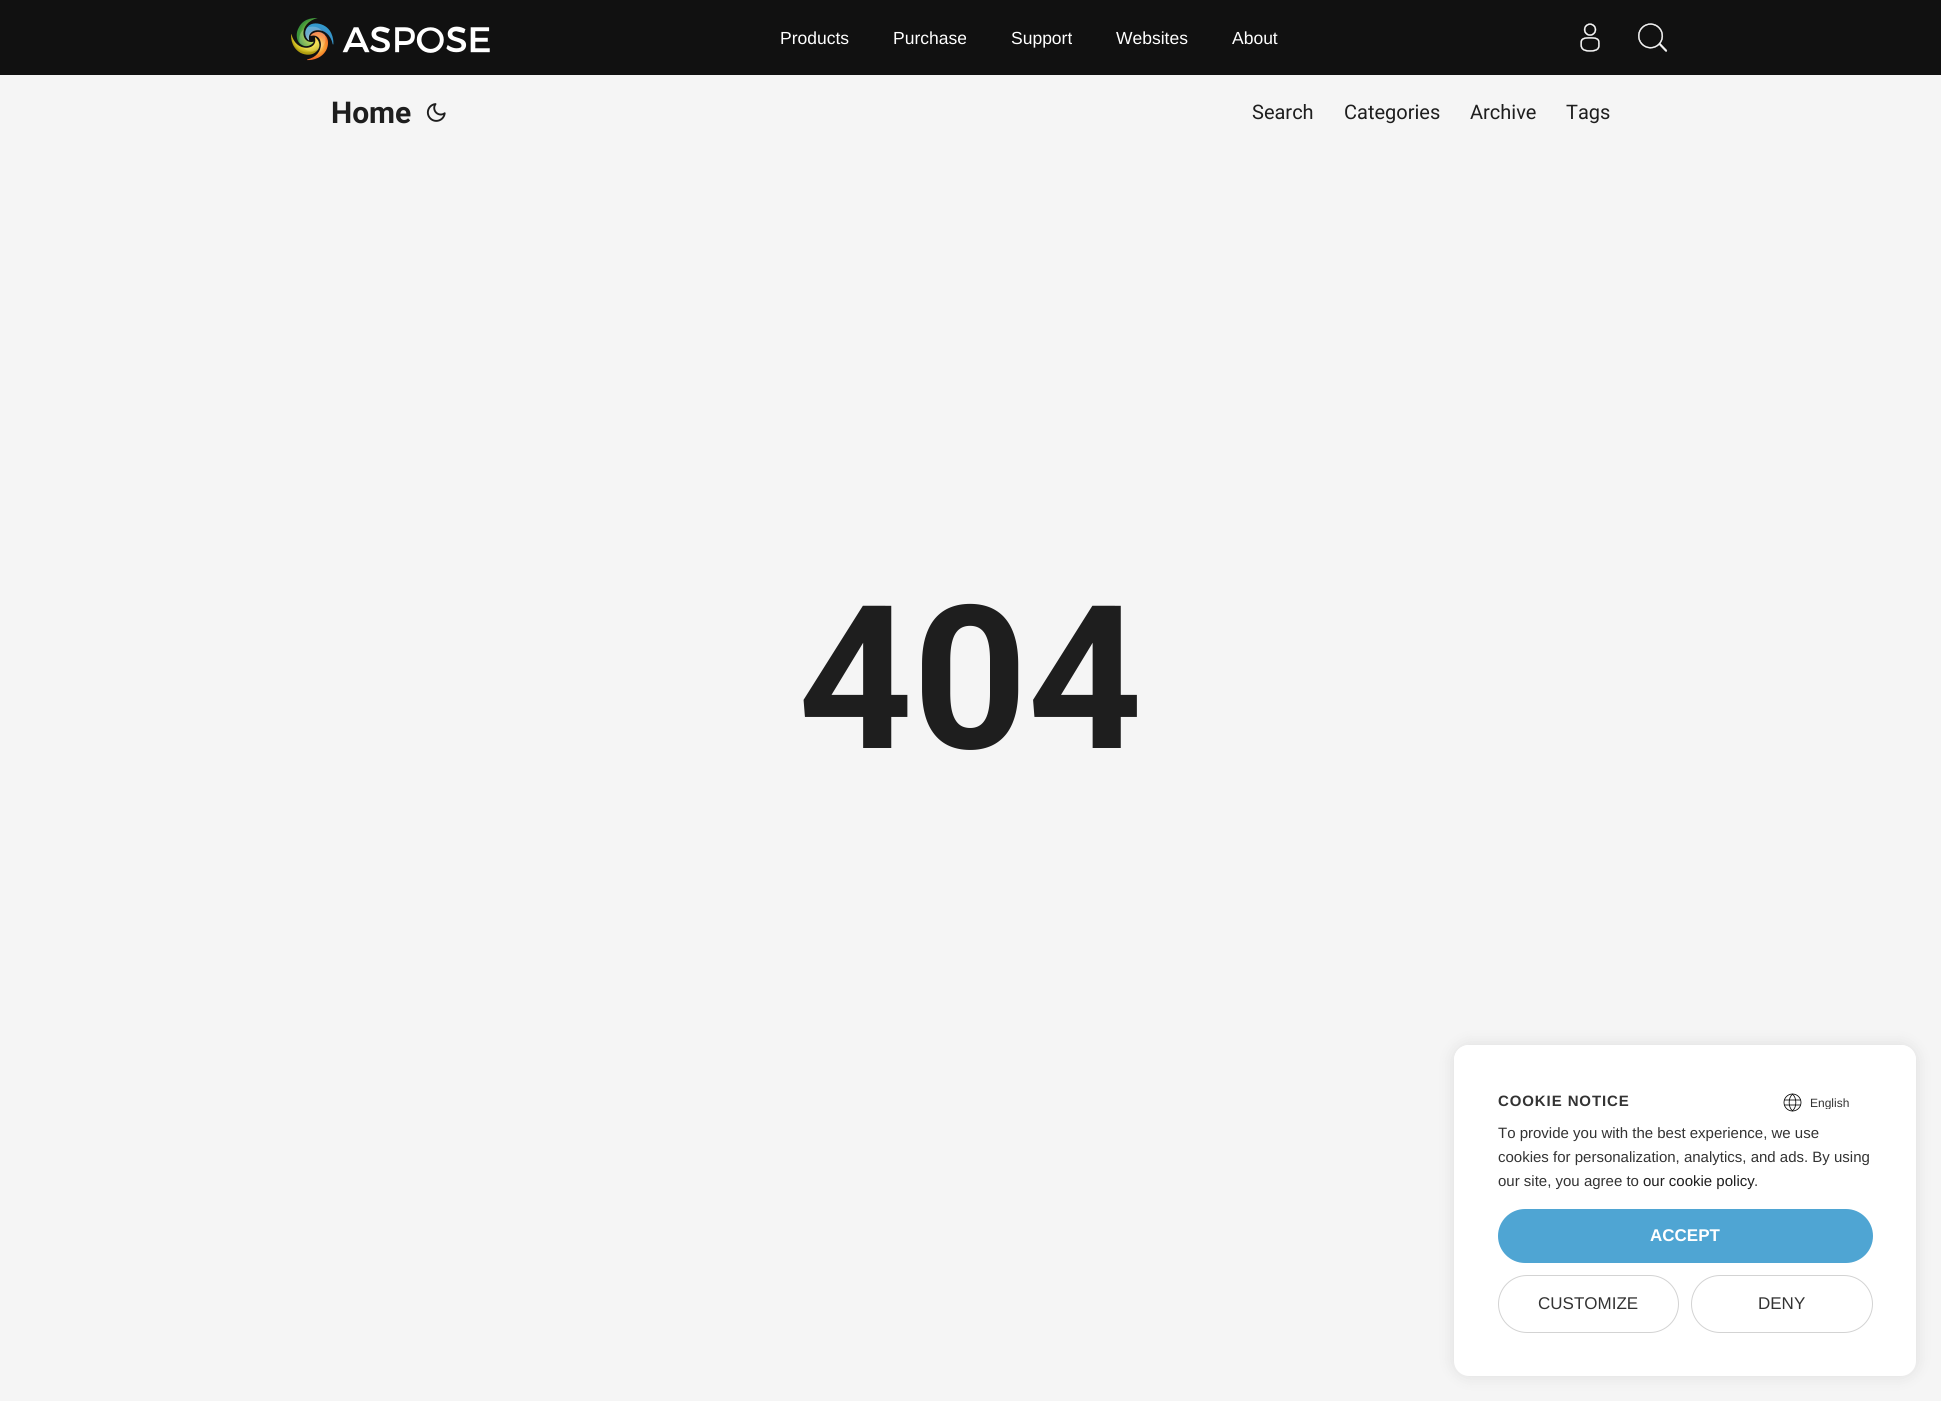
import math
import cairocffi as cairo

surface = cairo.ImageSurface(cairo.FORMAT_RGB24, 1941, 1401)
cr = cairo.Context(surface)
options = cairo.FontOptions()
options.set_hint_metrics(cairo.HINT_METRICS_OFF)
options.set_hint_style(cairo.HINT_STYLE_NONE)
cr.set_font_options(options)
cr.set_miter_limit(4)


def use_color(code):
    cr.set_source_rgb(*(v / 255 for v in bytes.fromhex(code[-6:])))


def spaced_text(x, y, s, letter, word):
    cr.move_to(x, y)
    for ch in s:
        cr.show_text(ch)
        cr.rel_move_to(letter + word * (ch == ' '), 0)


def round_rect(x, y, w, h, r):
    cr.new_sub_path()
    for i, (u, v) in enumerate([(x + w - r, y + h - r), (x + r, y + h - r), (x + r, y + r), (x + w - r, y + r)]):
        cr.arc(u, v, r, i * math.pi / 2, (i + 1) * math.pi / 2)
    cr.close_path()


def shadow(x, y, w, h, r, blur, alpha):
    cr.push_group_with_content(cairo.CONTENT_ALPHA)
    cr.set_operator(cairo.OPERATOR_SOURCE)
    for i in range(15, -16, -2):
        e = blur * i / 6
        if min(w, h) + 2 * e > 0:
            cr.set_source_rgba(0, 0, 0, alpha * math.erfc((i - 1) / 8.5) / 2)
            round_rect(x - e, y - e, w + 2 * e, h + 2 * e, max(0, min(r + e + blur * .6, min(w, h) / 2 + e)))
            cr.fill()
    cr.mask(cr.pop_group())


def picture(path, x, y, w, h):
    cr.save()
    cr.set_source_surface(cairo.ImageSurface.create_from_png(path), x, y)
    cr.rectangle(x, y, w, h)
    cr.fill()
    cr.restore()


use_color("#f5f5f5")
cr.paint()
use_color("#111111")
cr.rectangle(0, 0, 1941, 75)
cr.fill()
picture("img1.png", 291, 18, 199, 43)
cr.select_font_face("Liberation Sans")
cr.set_font_size(17.5)
use_color("#ffffff")
cr.move_to(780, 44)
cr.show_text("Products")
cr.move_to(893, 44)
cr.show_text("Purchase")
cr.move_to(1011, 44)
cr.show_text("Support")
cr.move_to(1116, 44)
cr.show_text("Websites")
cr.move_to(1232, 44)
cr.show_text("About")
picture("img2.png", 1580, 23, 20, 29)
picture("img3.png", 1638, 23, 30, 29)
cr.select_font_face("Roboto", cairo.FONT_SLANT_NORMAL, cairo.FONT_WEIGHT_BOLD)
cr.set_font_size(30)
use_color("#1e1e1e")
cr.move_to(331, 123)
cr.show_text("Home")
picture("img4.png", 426, 103, 20, 19)
cr.select_font_face("Roboto")
cr.set_font_size(20)
cr.move_to(1252, 119)
cr.show_text("Search")
cr.move_to(1344, 119)
cr.show_text("Categories")
cr.move_to(1470, 119)
cr.show_text("Archive")
cr.move_to(1566, 119)
cr.show_text("Tags")
cr.select_font_face("Roboto", cairo.FONT_SLANT_NORMAL, cairo.FONT_WEIGHT_BOLD)
cr.set_font_size(200)
cr.move_to(798, 748)
cr.show_text("404")
use_color("#000000")
shadow(1454, 1045, 462, 331, 15, 8, 0.1)
use_color("#ffffff")
round_rect(1454, 1045, 462, 331, 15)
cr.fill()
cr.new_path()
cr.move_to(1469, 1045)
cr.line_to(1901, 1045)
cr.curve_to(1909.5, 1045, 1916, 1051.5, 1916, 1060)
cr.line_to(1916, 1115)
cr.line_to(1454, 1115)
cr.line_to(1454, 1060)
cr.curve_to(1454, 1051.5, 1460.5, 1045, 1469, 1045)
cr.close_path()
cr.fill()
cr.select_font_face("Liberation Sans", cairo.FONT_SLANT_NORMAL, cairo.FONT_WEIGHT_BOLD)
cr.set_font_size(15)
use_color("#333333")
spaced_text(1498, 1106, "COOKIE NOTICE", 0.9, 0)
picture("img5.png", 1783, 1093, 19, 19)
cr.save()
cr.rectangle(1810, 1095, 63, 14)
cr.clip()
cr.select_font_face("Liberation Sans")
cr.set_font_size(12)
cr.move_to(1810, 1107)
cr.show_text("English")
cr.restore()
cr.select_font_face("Liberation Sans")
cr.move_to(1498, 1138)
cr.show_text("To provide you with the best experience, we use")
cr.move_to(1498, 1162)
cr.show_text("cookies for personalization, analytics, and ads. By using")
cr.move_to(1498, 1186)
cr.show_text("our site, you agree to")
use_color("#1e1e1e")
cr.move_to(1643, 1186)
cr.show_text("our cookie policy")
use_color("#333333")
cr.move_to(1754, 1186)
cr.show_text(".")
use_color("#4fa5d3")
round_rect(1498, 1209, 375, 54, 27)
cr.fill()
cr.select_font_face("Liberation Sans", cairo.FONT_SLANT_NORMAL, cairo.FONT_WEIGHT_BOLD)
cr.set_font_size(17)
use_color("#ffffff")
cr.move_to(1650, 1241)
cr.show_text("ACCEPT")
round_rect(1498.5, 1275.5, 180, 57, 28.5)
use_color("#d3d3d3")
cr.set_line_width(1)
cr.stroke()
cr.select_font_face("Liberation Sans")
use_color("#333333")
cr.move_to(1538, 1309)
cr.show_text("CUSTOMIZE")
round_rect(1691.5, 1275.5, 181, 57, 28.5)
use_color("#d3d3d3")
cr.stroke()
use_color("#333333")
cr.move_to(1758, 1309)
cr.show_text("DENY")
surface.write_to_png("result.png")
